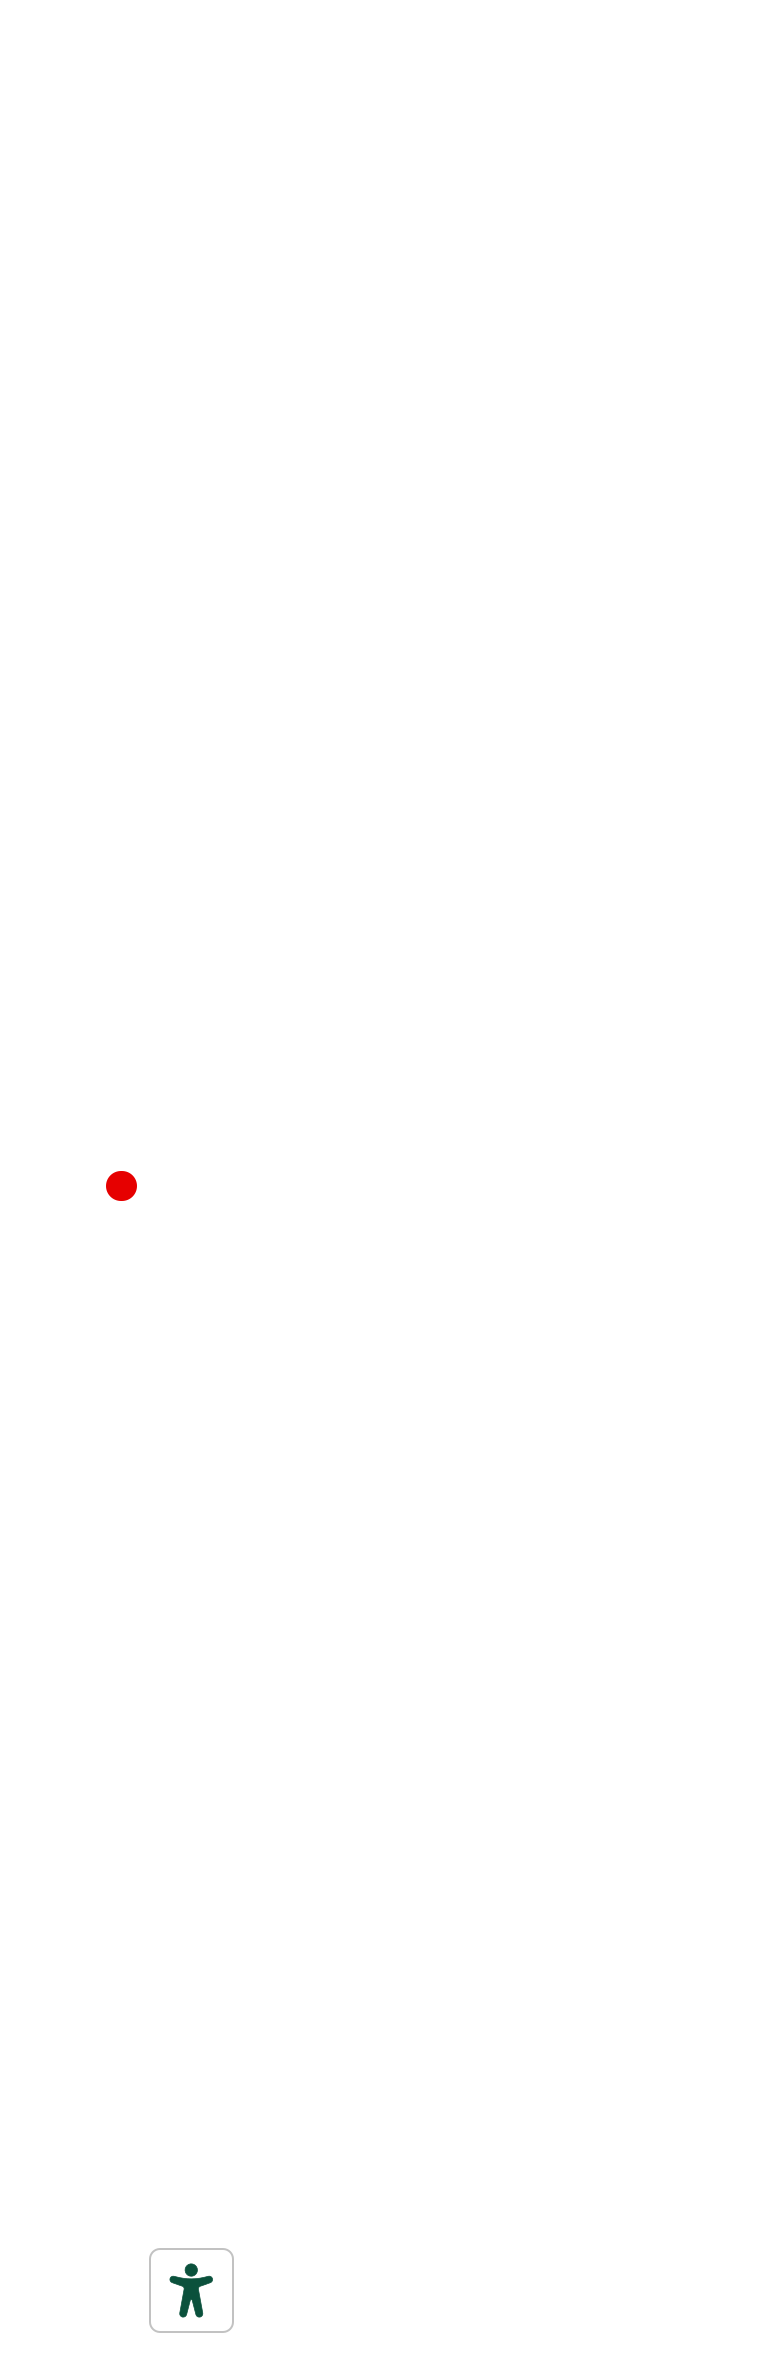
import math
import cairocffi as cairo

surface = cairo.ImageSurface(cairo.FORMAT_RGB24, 764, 2368)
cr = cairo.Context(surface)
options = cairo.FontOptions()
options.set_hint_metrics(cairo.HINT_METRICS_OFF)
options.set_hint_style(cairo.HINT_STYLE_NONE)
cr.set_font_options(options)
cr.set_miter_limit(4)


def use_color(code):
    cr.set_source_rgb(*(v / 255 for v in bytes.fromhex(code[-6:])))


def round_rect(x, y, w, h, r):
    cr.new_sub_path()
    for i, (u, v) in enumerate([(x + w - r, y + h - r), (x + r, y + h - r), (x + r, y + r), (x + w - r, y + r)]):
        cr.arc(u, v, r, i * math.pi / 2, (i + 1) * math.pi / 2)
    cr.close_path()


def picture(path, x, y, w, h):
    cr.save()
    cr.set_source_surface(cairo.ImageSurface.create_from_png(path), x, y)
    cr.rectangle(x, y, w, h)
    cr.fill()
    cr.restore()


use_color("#ffffff")
cr.paint()
use_color("#e60000")
round_rect(103.5, 1168.5, 36, 35, 17.5)
cr.fill_preserve()
use_color("#ffffff")
cr.set_line_width(5)
cr.stroke()
picture("img1.png", 169, 2263, 44, 55)
round_rect(150, 2249, 83, 83, 10)
use_color("#c2c2c2")
cr.set_line_width(2)
cr.stroke()
surface.write_to_png("result.png")
